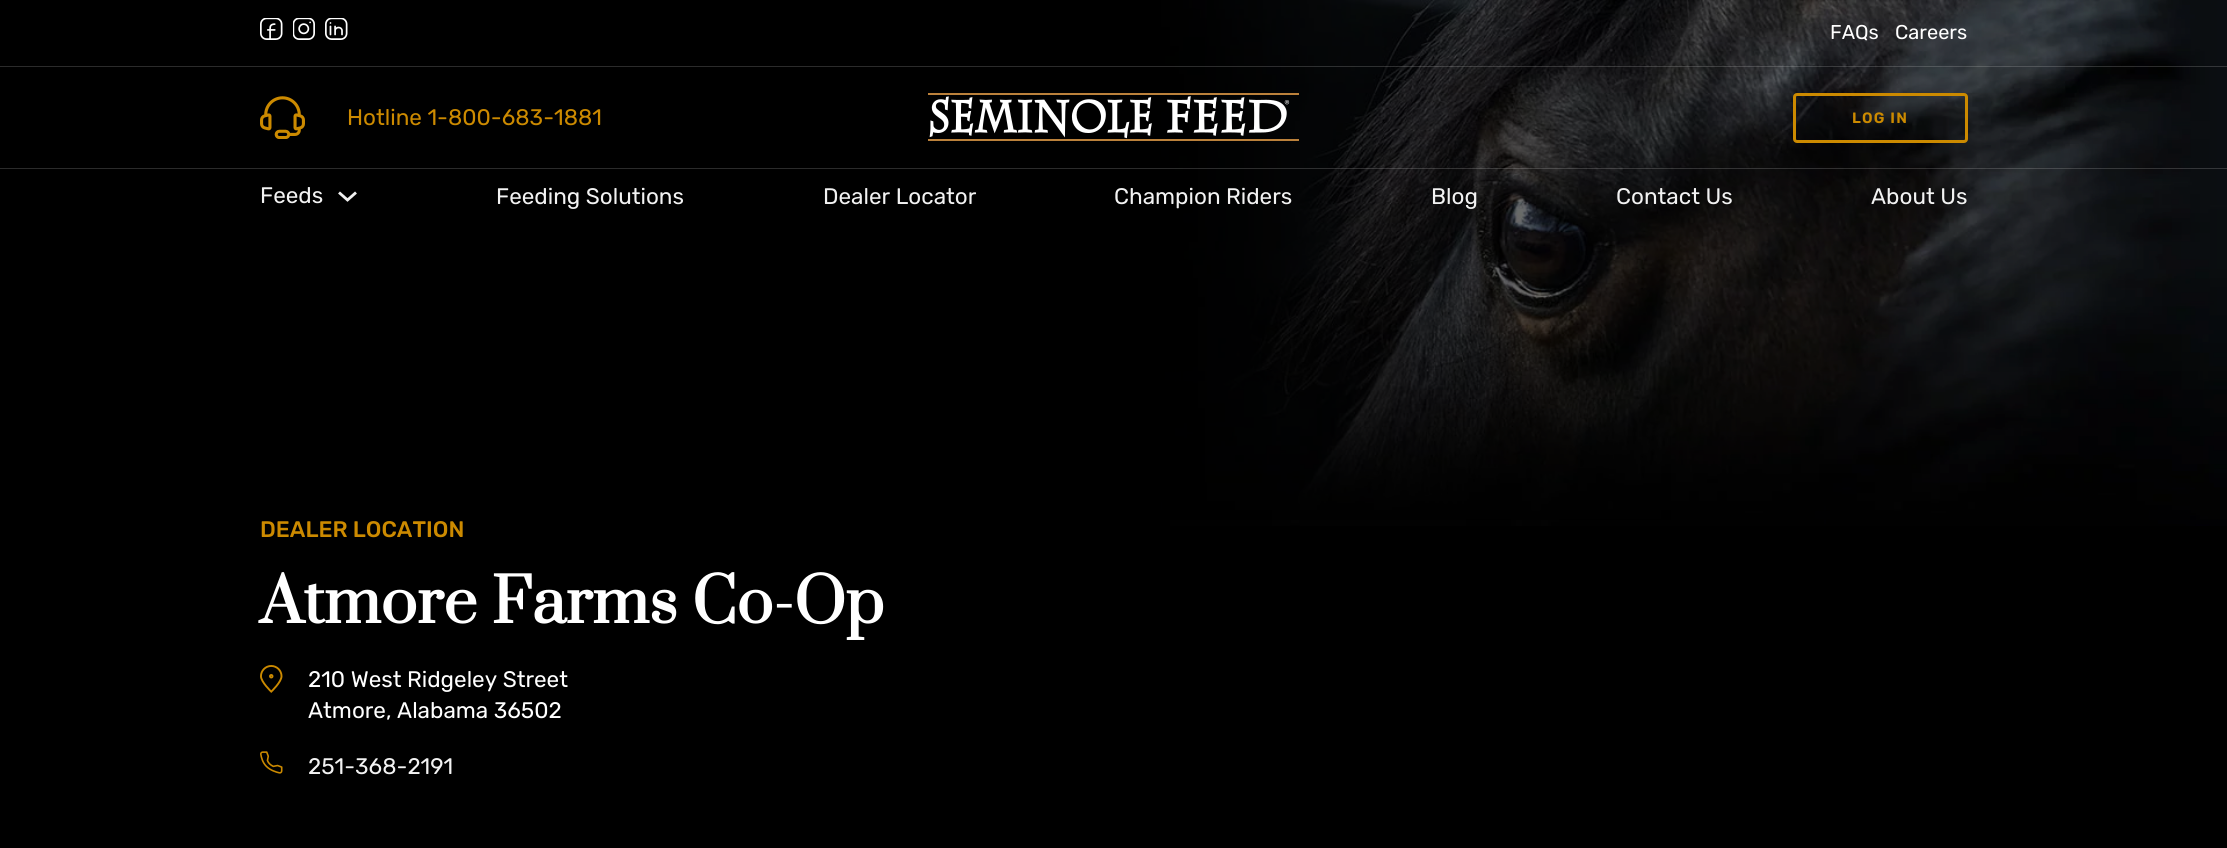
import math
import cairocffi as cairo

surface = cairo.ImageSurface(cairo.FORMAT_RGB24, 2227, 848)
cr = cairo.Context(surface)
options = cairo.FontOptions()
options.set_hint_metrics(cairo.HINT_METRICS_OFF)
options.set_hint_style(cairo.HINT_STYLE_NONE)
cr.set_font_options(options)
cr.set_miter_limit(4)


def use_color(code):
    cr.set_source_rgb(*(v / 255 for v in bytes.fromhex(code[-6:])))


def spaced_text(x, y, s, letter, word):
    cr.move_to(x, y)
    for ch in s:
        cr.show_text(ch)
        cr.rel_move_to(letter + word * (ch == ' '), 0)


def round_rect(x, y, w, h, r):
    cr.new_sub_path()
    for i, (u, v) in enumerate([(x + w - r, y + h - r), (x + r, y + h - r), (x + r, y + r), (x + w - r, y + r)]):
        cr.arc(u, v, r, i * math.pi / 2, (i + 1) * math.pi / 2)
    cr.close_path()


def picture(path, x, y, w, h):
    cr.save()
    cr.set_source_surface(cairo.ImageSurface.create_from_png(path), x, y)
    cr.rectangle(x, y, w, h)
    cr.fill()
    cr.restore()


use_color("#000000")
cr.paint()
picture("img6.png", 1161, 0, 1066, 526)
gradient = cairo.LinearGradient(0, 490, 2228, 490)
gradient.add_color_stop_rgba(0.5, 0, 0, 0, 0.8)
gradient.add_color_stop_rgba(1, 0, 0, 0, 0.2)
cr.set_source(gradient)
cr.rectangle(1161, 0, 1066, 520)
cr.fill()
cr.set_source_rgba(0.851, 0.851, 0.851, 0.2)
cr.rectangle(0, 66, 2227, 1)
cr.fill()
picture("img1.png", 260, 18, 23, 22)
picture("img2.png", 293, 18, 22, 22)
picture("img3.png", 325, 18, 23, 22)
cr.select_font_face("Rubik")
cr.set_font_size(20)
use_color("#ffffff")
cr.move_to(1830, 39)
cr.show_text("FAQs")
cr.move_to(1895, 39)
cr.show_text("Careers")
picture("img4.png", 260, 96, 45, 43)
cr.set_font_size(22.5)
use_color("#cc8a00")
cr.move_to(347, 125)
cr.show_text("Hotline 1-800-683-1881")
picture("img5.png", 928, 93, 371, 48)
round_rect(1794.5, 94.5, 172, 47, 2.5)
cr.set_line_width(3)
cr.stroke()
cr.select_font_face("Rubik SemiBold")
cr.set_font_size(15)
spaced_text(1852, 123, "LOG IN", 1.25, 0)
cr.set_source_rgba(0.851, 0.851, 0.851, 0.2)
cr.rectangle(0, 168, 2227, 1)
cr.fill()
cr.select_font_face("Rubik")
cr.set_font_size(22.5)
use_color("#f2f2f2")
cr.move_to(260, 203)
cr.show_text("Feeds")
cr.new_path()
cr.move_to(339, 192.5)
cr.line_to(347.5, 200)
cr.line_to(356, 192.5)
cr.set_line_width(2.8)
cr.stroke()
cr.move_to(496, 204)
cr.show_text("Feeding Solutions")
cr.move_to(823, 204)
cr.show_text("Dealer Locator")
cr.move_to(1114, 204)
cr.show_text("Champion Riders")
cr.move_to(1431, 204)
cr.show_text("Blog")
cr.move_to(1616, 204)
cr.show_text("Contact Us")
cr.move_to(1871, 204)
cr.show_text("About Us")
cr.select_font_face("Rubik Medium")
use_color("#cc8a00")
cr.move_to(260, 537)
cr.show_text("DEALER LOCATION")
cr.select_font_face("Prata", cairo.FONT_SLANT_NORMAL, cairo.FONT_WEIGHT_BOLD)
cr.set_font_size(60)
use_color("#ffffff")
cr.move_to(260, 623)
cr.show_text("Atmore Farms Co-Op")
picture("img7.png", 260, 665, 23, 28)
cr.select_font_face("Rubik")
cr.set_font_size(22.5)
cr.move_to(308, 687)
cr.show_text("210 West Ridgeley Street")
cr.move_to(308, 718)
cr.show_text("Atmore, Alabama 36502")
picture("img8.png", 260, 751, 23, 23)
use_color("#f2f2f2")
cr.move_to(308, 774)
cr.show_text("251-368-2191")
surface.write_to_png("result.png")
